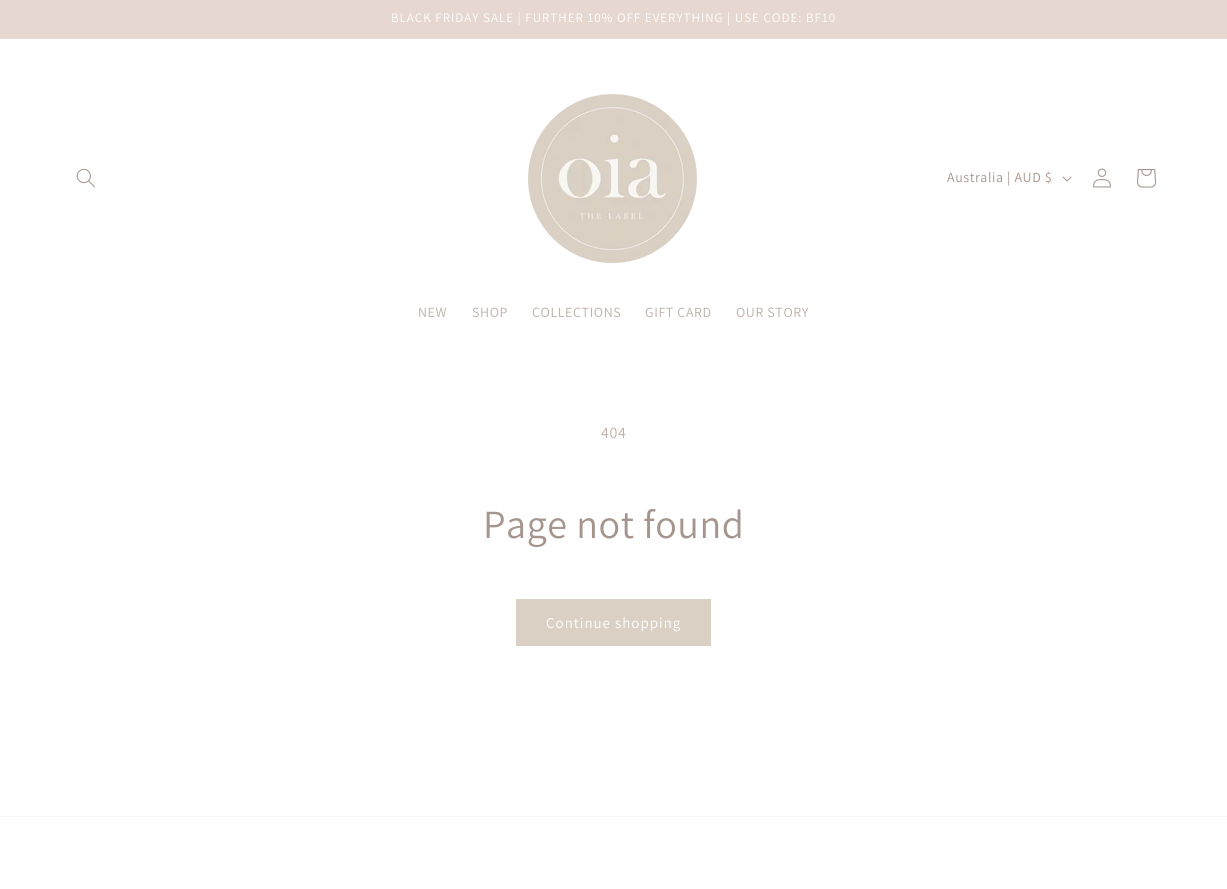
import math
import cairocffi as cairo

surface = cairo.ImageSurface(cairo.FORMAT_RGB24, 1227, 889)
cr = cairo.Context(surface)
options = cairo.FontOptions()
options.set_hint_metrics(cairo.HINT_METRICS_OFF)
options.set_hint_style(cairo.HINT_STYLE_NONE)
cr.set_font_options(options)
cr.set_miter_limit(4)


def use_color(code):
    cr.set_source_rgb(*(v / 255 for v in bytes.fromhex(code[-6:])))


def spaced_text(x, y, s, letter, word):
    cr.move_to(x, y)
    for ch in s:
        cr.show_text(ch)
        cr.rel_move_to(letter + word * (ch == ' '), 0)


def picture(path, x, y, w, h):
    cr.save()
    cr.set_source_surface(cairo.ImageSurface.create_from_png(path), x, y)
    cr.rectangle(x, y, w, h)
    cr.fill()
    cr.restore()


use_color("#ffffff")
cr.paint()
use_color("#e6d7d0")
cr.rectangle(0, 0, 1227, 38)
cr.fill()
use_color("#e8dad4")
cr.rectangle(0, 38, 1227, 1)
cr.fill()
cr.select_font_face("Assistant")
cr.set_font_size(13)
use_color("#ffffff")
spaced_text(391, 22, "BLACK FRIDAY SALE | FURTHER 10% OFF EVERYTHING | USE CODE: BF10", 1, 0)
picture("img1.png", 76, 168, 19, 20)
picture("img2.png", 528, 94, 169, 170)
cr.set_font_size(14)
use_color("#a5958e")
spaced_text(947, 182, "Australia | AUD $", 0.6, 0)
picture("img3.png", 1062, 176, 10, 6)
picture("img4.png", 1093, 168, 18, 20)
picture("img5.png", 1137, 169, 20, 19)
use_color("#bcb0aa")
spaced_text(418, 317, "NEW", 0.6, 0)
spaced_text(472, 317, "SHOP", 0.6, 0)
spaced_text(532, 317, "COLLECTIONS", 0.6, 0)
spaced_text(645, 317, "GIFT CARD", 0.6, 0)
spaced_text(736, 317, "OUR STORY", 0.6, 0)
cr.set_font_size(16)
spaced_text(601, 438, "404", 0.6, 0)
cr.set_font_size(40)
use_color("#a5958e")
spaced_text(483, 538, "Page not found", 0.6, 0)
use_color("#dad0c4")
cr.rectangle(516, 599, 195, 47)
cr.fill()
cr.set_font_size(15)
use_color("#ffffff")
spaced_text(546, 628, "Continue shopping", 1, 0)
use_color("#f8f7f6")
cr.rectangle(0, 816, 1227, 1)
cr.fill()
surface.write_to_png("result.png")
